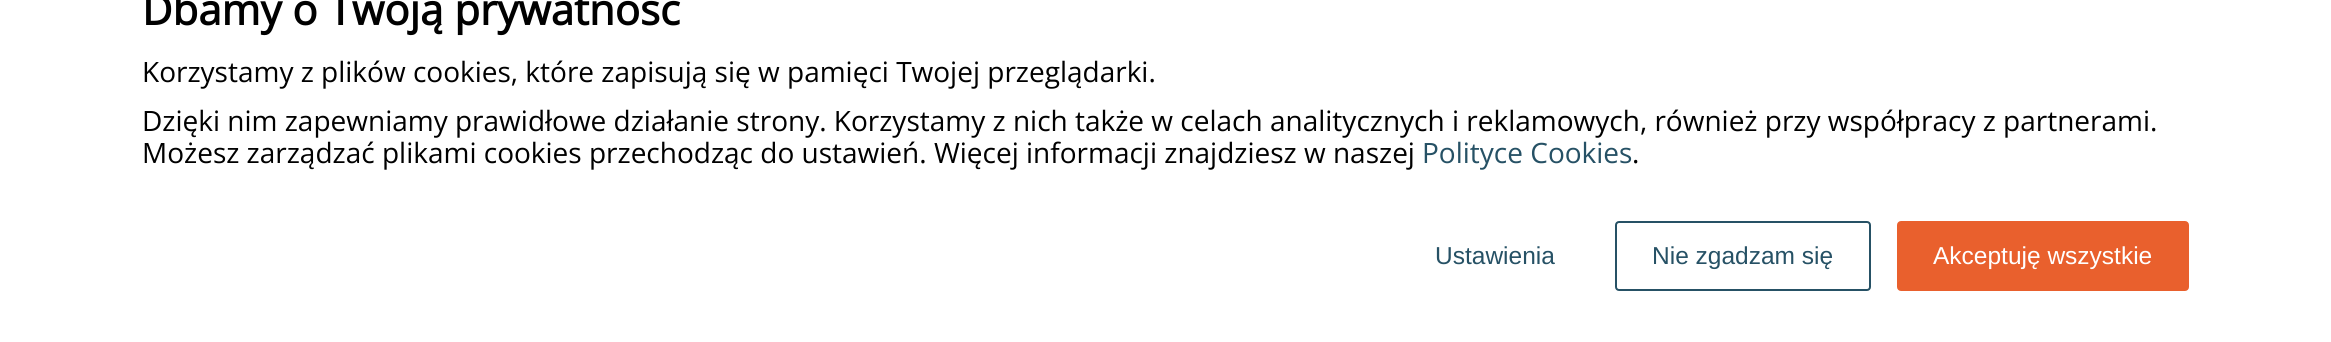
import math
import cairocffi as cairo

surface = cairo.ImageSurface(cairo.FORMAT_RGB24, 2331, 342)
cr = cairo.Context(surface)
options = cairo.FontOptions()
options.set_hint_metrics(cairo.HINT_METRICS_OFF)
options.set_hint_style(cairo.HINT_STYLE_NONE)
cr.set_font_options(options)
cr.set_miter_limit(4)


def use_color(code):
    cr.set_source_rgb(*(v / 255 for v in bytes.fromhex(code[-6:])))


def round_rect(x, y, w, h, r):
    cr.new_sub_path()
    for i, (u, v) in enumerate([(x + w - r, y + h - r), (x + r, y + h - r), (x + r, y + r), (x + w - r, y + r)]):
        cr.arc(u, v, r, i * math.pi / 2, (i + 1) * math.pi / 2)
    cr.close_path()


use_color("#ffffff")
cr.paint()
cr.select_font_face("Open Sans", cairo.FONT_SLANT_NORMAL, cairo.FONT_WEIGHT_BOLD)
cr.set_font_size(42)
use_color("#000000")
cr.move_to(142, 25)
cr.show_text("Dbamy o Twoją prywatność")
cr.select_font_face("Open Sans")
cr.set_font_size(28)
cr.move_to(142, 82)
cr.show_text("Korzystamy z plików cookies, które zapisują się w pamięci Twojej przeglądarki.")
cr.move_to(142, 131)
cr.show_text("Dzięki nim zapewniamy prawidłowe działanie strony. Korzystamy z nich także w celach analitycznych i reklamowych, również przy współpracy z partnerami.")
cr.move_to(142, 163)
cr.show_text("Możesz zarządzać plikami cookies przechodząc do ustawień. Więcej informacji znajdziesz w naszej")
use_color("#265165")
cr.move_to(1422, 163)
cr.show_text("Polityce Cookies")
use_color("#000000")
cr.move_to(1632, 163)
cr.show_text(".")
cr.select_font_face("Liberation Sans")
cr.set_font_size(24.5)
use_color("#265165")
cr.move_to(1435, 264)
cr.show_text("Ustawienia")
round_rect(1616, 222, 254, 68, 3)
cr.stroke()
cr.move_to(1652, 264)
cr.show_text("Nie zgadzam się")
use_color("#e9602d")
round_rect(1898, 222, 290, 68, 3)
cr.fill_preserve()
cr.stroke()
use_color("#ffffff")
cr.move_to(1933, 264)
cr.show_text("Akceptuję wszystkie")
surface.write_to_png("result.png")
